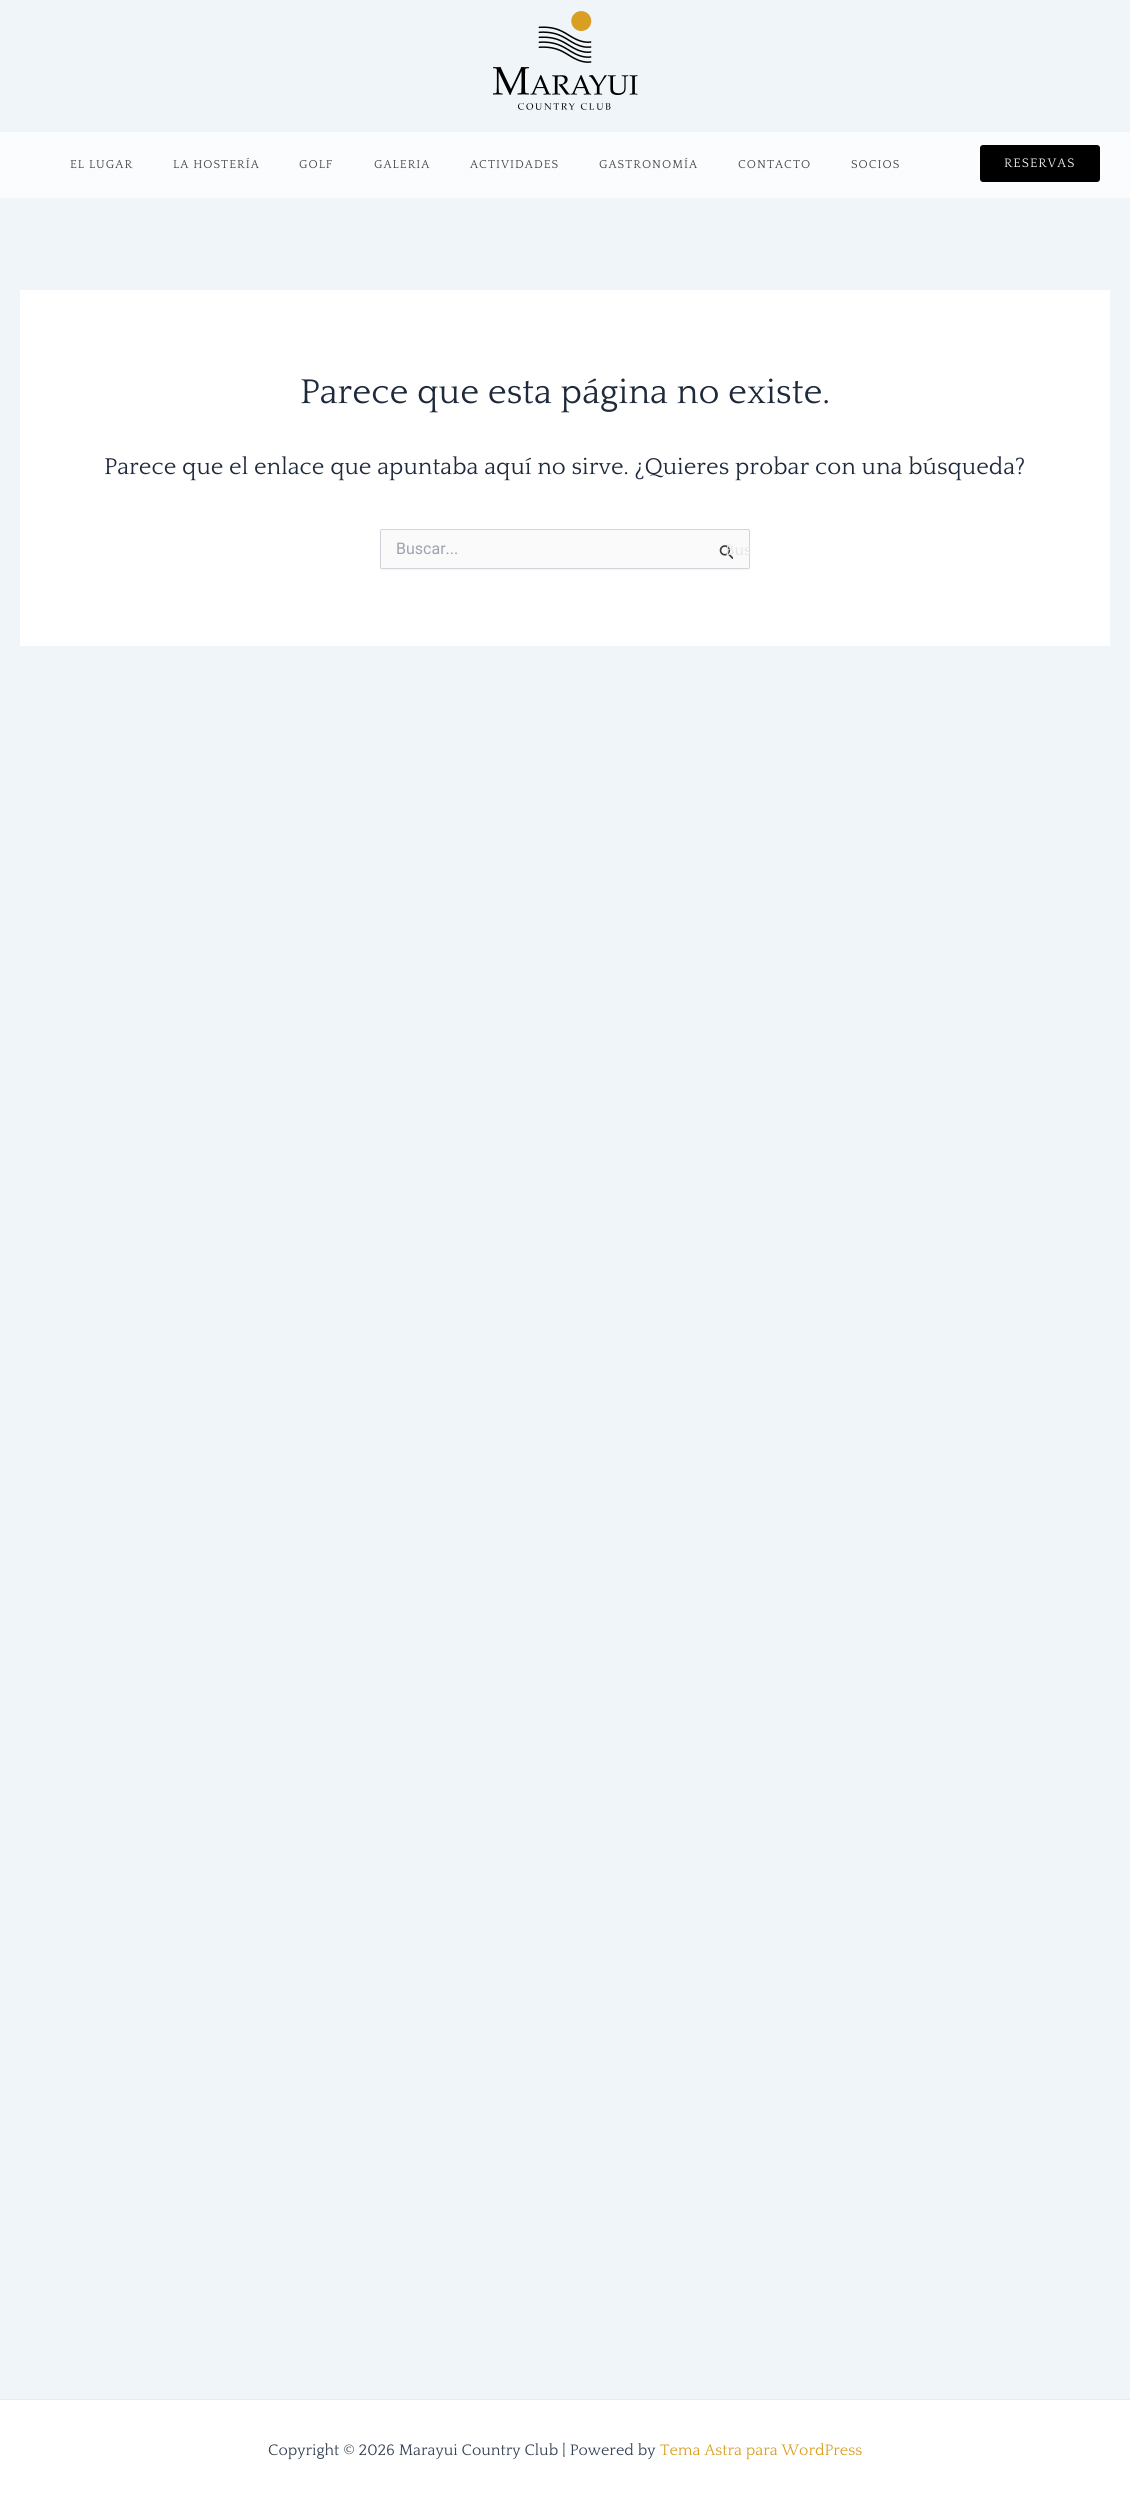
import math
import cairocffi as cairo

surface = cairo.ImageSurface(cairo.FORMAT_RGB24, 1130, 2500)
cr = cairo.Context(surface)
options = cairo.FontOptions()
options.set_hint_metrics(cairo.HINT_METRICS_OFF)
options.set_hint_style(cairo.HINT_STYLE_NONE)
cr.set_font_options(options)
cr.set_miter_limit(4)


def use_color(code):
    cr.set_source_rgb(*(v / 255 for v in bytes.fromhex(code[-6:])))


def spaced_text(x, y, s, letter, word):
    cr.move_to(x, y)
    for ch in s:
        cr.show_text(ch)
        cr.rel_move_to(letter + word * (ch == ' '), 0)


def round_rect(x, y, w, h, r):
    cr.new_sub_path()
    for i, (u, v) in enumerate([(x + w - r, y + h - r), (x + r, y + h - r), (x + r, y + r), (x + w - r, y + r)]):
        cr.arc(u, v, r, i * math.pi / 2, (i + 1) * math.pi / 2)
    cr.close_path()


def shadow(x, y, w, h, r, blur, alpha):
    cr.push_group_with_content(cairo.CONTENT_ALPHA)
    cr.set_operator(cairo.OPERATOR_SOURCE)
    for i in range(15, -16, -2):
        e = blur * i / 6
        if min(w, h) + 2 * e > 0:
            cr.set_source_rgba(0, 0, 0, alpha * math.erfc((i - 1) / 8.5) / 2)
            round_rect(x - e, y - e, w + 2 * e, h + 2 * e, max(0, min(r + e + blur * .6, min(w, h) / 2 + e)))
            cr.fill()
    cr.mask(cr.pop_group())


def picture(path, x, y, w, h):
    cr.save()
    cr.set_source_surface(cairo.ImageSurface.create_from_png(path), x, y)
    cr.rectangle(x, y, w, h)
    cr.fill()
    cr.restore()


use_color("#f0f5fa")
cr.paint()
picture("img1.png", 493, 11, 145, 99)
use_color("#fbfcfe")
cr.rectangle(0, 132, 1130, 66)
cr.fill()
cr.select_font_face("Quattrocento")
cr.set_font_size(12)
use_color("#424242")
spaced_text(70, 168, "EL LUGAR", 1, 0)
spaced_text(173, 168, "LA HOSTERÍA", 1, 0)
spaced_text(299, 168, "GOLF", 1, 0)
spaced_text(374, 168, "GALERIA", 1, 0)
spaced_text(470, 168, "ACTIVIDADES", 1, 0)
spaced_text(599, 168, "GASTRONOMÍA", 1, 0)
spaced_text(738, 168, "CONTACTO", 1, 0)
spaced_text(851, 168, "SOCIOS", 1, 0)
use_color("#000000")
round_rect(980, 145, 120, 37, 3)
cr.fill()
cr.set_font_size(13)
use_color("#f3f3f3")
spaced_text(1004, 167, "RESERVAS", 1, 0)
use_color("#ffffff")
cr.rectangle(20, 290, 1090, 356)
cr.fill()
cr.set_font_size(36)
use_color("#1e293b")
cr.move_to(300, 403)
cr.show_text("Parece que esta página no existe.")
cr.set_font_size(24)
cr.move_to(104, 474)
cr.show_text("Parece que el enlace que apuntaba aquí no sirve. ¿Quieres probar con una búsqueda?")
use_color("#000000")
shadow(380, 530, 370, 40, 2, 1, 0.05)
use_color("#fafafa")
round_rect(380.5, 529.5, 369, 39, 1.5)
cr.fill_preserve()
use_color("#d1d5db")
cr.set_line_width(1)
cr.stroke()
cr.select_font_face("Roboto")
cr.set_font_size(16)
use_color("#9ca3af")
cr.move_to(396, 554)
cr.show_text("Buscar...")
picture("img2.png", 719, 545, 14, 15)
cr.select_font_face("Quattrocento")
use_color("#e3e3e3")
cr.move_to(725, 555)
cr.show_text("Bus")
use_color("#ffffff")
cr.rectangle(0, 2400, 1130, 100)
cr.fill()
use_color("#eaeaea")
cr.rectangle(0, 2399, 1130, 1)
cr.fill()
use_color("#334155")
cr.move_to(268, 2455)
cr.show_text("Copyright © 2026 Marayui Country Club | Powered by")
use_color("#d99f23")
cr.move_to(660, 2455)
cr.show_text("Tema Astra para WordPress")
surface.write_to_png("result.png")
